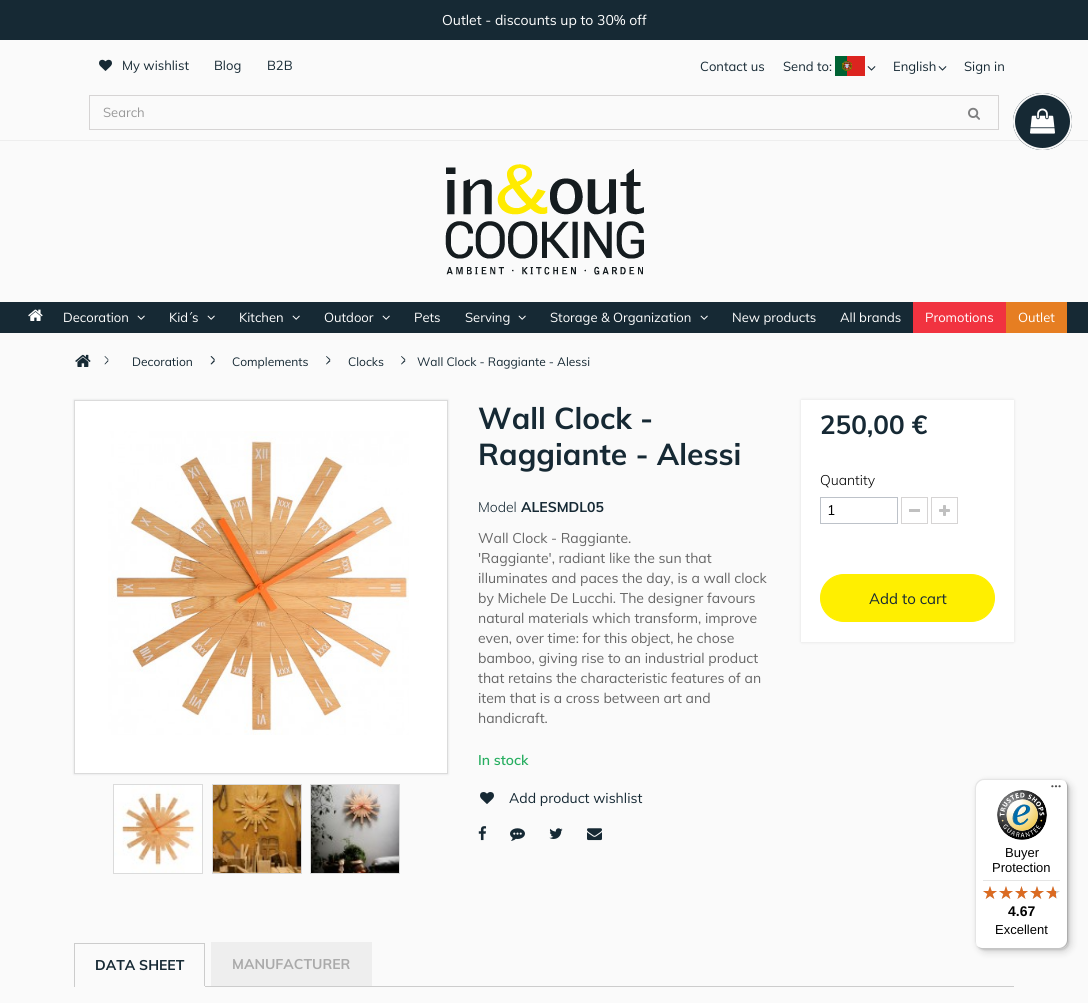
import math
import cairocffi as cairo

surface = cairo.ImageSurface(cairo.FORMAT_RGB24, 1088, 1003)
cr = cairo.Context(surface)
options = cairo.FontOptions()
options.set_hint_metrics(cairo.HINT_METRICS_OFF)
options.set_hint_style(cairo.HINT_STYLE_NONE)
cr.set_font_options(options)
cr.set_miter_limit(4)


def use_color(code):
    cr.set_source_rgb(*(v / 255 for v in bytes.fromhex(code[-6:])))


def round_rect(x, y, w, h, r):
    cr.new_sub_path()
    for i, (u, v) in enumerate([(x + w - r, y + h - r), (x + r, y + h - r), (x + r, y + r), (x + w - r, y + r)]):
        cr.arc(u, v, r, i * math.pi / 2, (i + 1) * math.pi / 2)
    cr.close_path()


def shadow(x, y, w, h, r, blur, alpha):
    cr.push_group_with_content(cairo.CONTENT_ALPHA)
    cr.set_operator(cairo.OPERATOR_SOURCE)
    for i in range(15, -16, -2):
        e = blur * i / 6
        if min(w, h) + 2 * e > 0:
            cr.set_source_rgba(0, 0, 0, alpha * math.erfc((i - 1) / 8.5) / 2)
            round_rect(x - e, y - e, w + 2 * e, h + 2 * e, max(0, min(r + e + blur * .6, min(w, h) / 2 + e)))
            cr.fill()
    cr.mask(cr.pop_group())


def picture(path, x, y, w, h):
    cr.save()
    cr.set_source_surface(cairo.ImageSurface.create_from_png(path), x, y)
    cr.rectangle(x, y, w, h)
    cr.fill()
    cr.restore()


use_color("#fafafa")
cr.paint()
use_color("#162934")
cr.rectangle(0, 0, 1088, 40)
cr.fill()
cr.select_font_face("Muli")
cr.set_font_size(14)
use_color("#ffffff")
cr.move_to(442, 25)
cr.show_text("Outlet - discounts up to 30% off")
use_color("#eeeeee")
cr.rectangle(0, 140, 1088, 1)
cr.fill()
picture("img1.png", 99, 59, 13, 12)
cr.set_font_size(13)
use_color("#162934")
cr.move_to(122, 70)
cr.show_text("My wishlist")
cr.move_to(214, 70)
cr.show_text("Blog")
cr.move_to(267, 70)
cr.show_text("B2B")
cr.move_to(700, 71)
cr.show_text("Contact us")
cr.move_to(783, 71)
cr.show_text("Send to:")
picture("img2.png", 835, 56, 30, 20)
picture("img3.png", 867, 66, 9, 5)
cr.move_to(893, 71)
cr.show_text("English")
picture("img3.png", 938, 66, 9, 5)
cr.move_to(964, 71)
cr.show_text("Sign in")
cr.rectangle(89.5, 95.5, 909, 34)
use_color("#d6d4d4")
cr.set_line_width(1)
cr.stroke()
use_color("#999999")
cr.move_to(103, 117)
cr.show_text("Search")
picture("img4.png", 968, 107, 12, 13)
use_color("#162934")
cr.new_path()
cr.move_to(1042.5, 93)
cr.curve_to(1059, 93, 1072, 106, 1072, 121.5)
cr.curve_to(1072, 137, 1059, 150, 1042.5, 150)
cr.curve_to(1026, 150, 1013, 137, 1013, 121.5)
cr.curve_to(1013, 106, 1026, 93, 1042.5, 93)
cr.close_path()
cr.fill()
cr.new_path()
cr.move_to(1042.5, 94)
cr.curve_to(1058, 94, 1071, 106.5, 1071, 121.5)
cr.curve_to(1071, 136.5, 1058, 149, 1042.5, 149)
cr.curve_to(1027, 149, 1014, 136.5, 1014, 121.5)
cr.curve_to(1014, 106.5, 1027, 94, 1042.5, 94)
cr.close_path()
use_color("#fafafa")
cr.set_line_width(2)
cr.stroke()
picture("img5.png", 1030, 108, 25, 26)
picture("img6.png", 445, 164, 199, 111)
use_color("#162934")
cr.rectangle(0, 302, 1088, 31)
cr.fill()
picture("img7.png", 28, 309, 15, 12)
use_color("#ffffff")
cr.move_to(63, 322)
cr.show_text("Decoration")
picture("img8.png", 137, 315, 8, 5)
cr.move_to(169, 322)
cr.show_text("Kid´s")
picture("img8.png", 207, 315, 8, 5)
cr.move_to(239, 322)
cr.show_text("Kitchen")
picture("img8.png", 292, 315, 8, 5)
cr.move_to(324, 322)
cr.show_text("Outdoor")
picture("img8.png", 382, 315, 8, 5)
cr.move_to(414, 322)
cr.show_text("Pets")
cr.move_to(465, 322)
cr.show_text("Serving")
picture("img8.png", 518, 315, 8, 5)
cr.move_to(550, 322)
cr.show_text("Storage & Organization")
picture("img8.png", 700, 315, 8, 5)
cr.move_to(732, 322)
cr.show_text("New products")
cr.move_to(840, 322)
cr.show_text("All brands")
use_color("#f13340")
cr.rectangle(913, 302, 93, 31)
cr.fill()
use_color("#ffffff")
cr.move_to(925, 322)
cr.show_text("Promotions")
use_color("#e67e22")
cr.rectangle(1006, 302, 61, 31)
cr.fill()
use_color("#ffffff")
cr.move_to(1018, 322)
cr.show_text("Outlet")
picture("img9.png", 75, 354, 16, 13)
use_color("#162934")
cr.new_path()
cr.move_to(105, 356)
cr.line_to(108.5, 359.5)
cr.line_to(108, 360)
cr.line_to(104.5, 356.5)
cr.close_path()
cr.move_to(108, 360)
cr.line_to(108.5, 361)
cr.line_to(105, 364.5)
cr.line_to(104.5, 364)
cr.close_path()
cr.fill()
cr.set_font_size(12)
cr.move_to(132, 366)
cr.show_text("Decoration")
cr.new_path()
cr.move_to(211.5, 356)
cr.line_to(215, 359.5)
cr.line_to(214, 360)
cr.line_to(210.5, 356.5)
cr.close_path()
cr.move_to(214, 360)
cr.line_to(215, 361)
cr.line_to(211.5, 364.5)
cr.line_to(210.5, 364)
cr.close_path()
cr.fill()
cr.move_to(232, 366)
cr.show_text("Complements")
cr.new_path()
cr.move_to(326.5, 356)
cr.line_to(330.5, 359.5)
cr.line_to(329.5, 360)
cr.line_to(326, 356.5)
cr.close_path()
cr.move_to(329.5, 360)
cr.line_to(330.5, 361)
cr.line_to(326.5, 364.5)
cr.line_to(326, 364)
cr.close_path()
cr.fill()
cr.move_to(348, 366)
cr.show_text("Clocks")
cr.new_path()
cr.move_to(401.5, 356)
cr.line_to(405.5, 359.5)
cr.line_to(404.5, 360)
cr.line_to(401, 356.5)
cr.close_path()
cr.move_to(404.5, 360)
cr.line_to(405.5, 361)
cr.line_to(401.5, 364.5)
cr.line_to(401, 364)
cr.close_path()
cr.fill()
cr.move_to(417, 366)
cr.show_text("Wall Clock - Raggiante - Alessi")
use_color("#d9dadb")
shadow(74, 400, 374, 374, 0, 1, 1)
use_color("#ffffff")
cr.rectangle(74.5, 400.5, 373, 373)
cr.fill_preserve()
use_color("#dbdbdb")
cr.set_line_width(1)
cr.stroke()
picture("img10.png", 108, 431, 301, 304)
cr.rectangle(113.5, 784.5, 89, 89)
cr.stroke()
picture("img11.png", 114, 785, 88, 88)
cr.rectangle(212.5, 784.5, 89, 89)
cr.stroke()
picture("img12.png", 213, 785, 88, 88)
cr.rectangle(310.5, 784.5, 89, 89)
cr.stroke()
picture("img13.png", 311, 785, 88, 88)
cr.select_font_face("Muli", cairo.FONT_SLANT_NORMAL, cairo.FONT_WEIGHT_BOLD)
cr.set_font_size(30)
use_color("#162934")
cr.move_to(478, 429)
cr.show_text("Wall Clock -")
cr.move_to(478, 465)
cr.show_text("Raggiante - Alessi")
cr.select_font_face("Muli Light")
cr.set_font_size(14)
cr.move_to(478, 512)
cr.show_text("Model")
cr.select_font_face("Muli", cairo.FONT_SLANT_NORMAL, cairo.FONT_WEIGHT_BOLD)
cr.move_to(521, 512)
cr.show_text("ALESMDL05")
cr.select_font_face("Muli")
use_color("#666666")
cr.move_to(478, 543)
cr.show_text("Wall Clock - Raggiante.")
cr.move_to(478, 563)
cr.show_text("'Raggiante', radiant like the sun that")
cr.move_to(478, 583)
cr.show_text("illuminates and paces the day, is a wall clock")
cr.move_to(478, 603)
cr.show_text("by Michele De Lucchi. The designer favours")
cr.move_to(478, 623)
cr.show_text("natural materials which transform, improve")
cr.move_to(478, 643)
cr.show_text("even, over time: for this object, he chose")
cr.move_to(478, 663)
cr.show_text("bamboo, giving rise to an industrial product")
cr.move_to(478, 683)
cr.show_text("that retains the characteristic features of an")
cr.move_to(478, 703)
cr.show_text("item that is a cross between art and")
cr.move_to(478, 723)
cr.show_text("handicraft.")
cr.select_font_face("Muli SemiBold")
use_color("#27ae60")
cr.move_to(478, 765)
cr.show_text("In stock")
picture("img14.png", 480, 792, 14, 12)
cr.select_font_face("Muli")
use_color("#162934")
cr.move_to(509, 803)
cr.show_text("Add product wishlist")
picture("img15.png", 478, 826, 9, 15)
picture("img16.png", 510, 828, 15, 13)
picture("img17.png", 549, 828, 14, 11)
picture("img18.png", 587, 828, 15, 13)
use_color("#000000")
shadow(801, 400, 213, 242, 0, 1.5, 0.1)
use_color("#ffffff")
cr.rectangle(801, 400, 213, 242)
cr.fill()
cr.select_font_face("Muli", cairo.FONT_SLANT_NORMAL, cairo.FONT_WEIGHT_BOLD)
cr.set_font_size(26)
use_color("#162934")
cr.move_to(820, 434)
cr.show_text("250,00 €")
cr.select_font_face("Muli Light")
cr.set_font_size(14)
use_color("#000000")
cr.move_to(820, 485)
cr.show_text("Quantity")
cr.rectangle(820.5, 497.5, 77, 26)
use_color("#bdc2c9")
cr.stroke()
cr.select_font_face("Muli")
use_color("#000000")
cr.move_to(827, 515)
cr.show_text("1")
cr.rectangle(901.5, 497.5, 26, 26)
use_color("#d6d4d4")
cr.stroke()
use_color("#c0c0c0")
cr.rectangle(909, 509, 11, 3)
cr.fill()
cr.rectangle(931.5, 497.5, 26, 26)
use_color("#d6d4d4")
cr.stroke()
picture("img19.png", 939, 505, 11, 11)
use_color("#ffef00")
round_rect(820.5, 574.5, 174, 47, 23.5)
cr.fill_preserve()
cr.stroke()
cr.set_font_size(15)
use_color("#162934")
cr.move_to(869, 604)
cr.show_text("Add to cart")
use_color("#cccccc")
cr.rectangle(205, 986, 809, 1)
cr.fill()
cr.rectangle(74, 943, 131, 1)
cr.fill()
cr.rectangle(204, 943, 1, 44)
cr.fill()
use_color("#fafafa")
cr.rectangle(204, 986, 1, 1)
cr.fill()
use_color("#cccccc")
cr.rectangle(74, 943, 1, 44)
cr.fill()
cr.select_font_face("Muli", cairo.FONT_SLANT_NORMAL, cairo.FONT_WEIGHT_BOLD)
cr.set_font_size(14)
use_color("#162934")
cr.move_to(95, 970)
cr.show_text("DATA SHEET")
cr.rectangle(211.5, 942.5, 160, 43)
use_color("#eeeeee")
cr.stroke()
cr.rectangle(212, 943, 159, 42)
cr.fill()
use_color("#aaaaaa")
cr.move_to(232, 969)
cr.show_text("MANUFACTURER")
use_color("#000000")
shadow(978, 782, 93, 170, 8, 4, 0.15)
shadow(976, 780, 93, 170, 8, 1, 0.15)
use_color("#ffffff")
round_rect(975, 779, 93, 170, 8)
cr.fill()
use_color("#e5e5e5")
cr.new_path()
cr.move_to(984, 780)
cr.line_to(1061, 780)
cr.curve_to(1063, 780, 1065, 781, 1067, 783)
cr.curve_to(1065, 781, 1063, 779, 1060, 779)
cr.line_to(983, 779)
cr.curve_to(979, 779, 975, 783, 975, 787)
cr.line_to(975, 941)
cr.curve_to(975, 944, 977, 946, 979, 948)
cr.curve_to(977, 946, 976, 944, 976, 942)
cr.line_to(976, 788)
cr.curve_to(976, 784, 980, 780, 984, 780)
cr.close_path()
cr.fill()
cr.set_source_rgba(0, 0, 0, 0.2)
cr.new_path()
cr.move_to(976, 945)
cr.curve_to(978, 947, 980, 949, 983, 949)
cr.line_to(1060, 949)
cr.curve_to(1064, 949, 1068, 945, 1068, 941)
cr.line_to(1068, 787)
cr.curve_to(1068, 784, 1066, 782, 1064, 780)
cr.curve_to(1066, 782, 1067, 784, 1067, 786)
cr.line_to(1067, 940)
cr.curve_to(1067, 944, 1063, 948, 1059, 948)
cr.line_to(982, 948)
cr.curve_to(980, 948, 978, 947, 976, 945)
cr.close_path()
cr.fill()
cr.set_source_rgba(0.196, 0.196, 0.196, 0.2)
cr.new_path()
cr.move_to(977, 946)
cr.curve_to(978, 948, 981, 949, 983, 949)
cr.line_to(1060, 949)
cr.curve_to(1064, 949, 1068, 945, 1068, 941)
cr.line_to(1068, 787)
cr.curve_to(1068, 785, 1067, 782, 1065, 781)
cr.curve_to(1066, 782, 1067, 784, 1067, 786)
cr.line_to(1067, 940)
cr.curve_to(1067, 945, 1064, 948, 1059, 948)
cr.line_to(982, 948)
cr.curve_to(980, 948, 978, 947, 977, 946)
cr.close_path()
cr.fill()
picture("img20.png", 1051, 785, 10, 3)
cr.set_source_rgba(1, 1, 1, 0.3)
cr.new_path()
cr.move_to(977, 946)
cr.curve_to(978, 948, 981, 949, 983, 949)
cr.line_to(1060, 949)
cr.curve_to(1064, 949, 1068, 945, 1068, 941)
cr.line_to(1068, 940)
cr.curve_to(1068, 945, 1064, 948, 1060, 948)
cr.line_to(982, 948)
cr.curve_to(980, 948, 978, 947, 977, 946)
cr.close_path()
cr.fill()
picture("img21.png", 997, 790, 50, 50)
cr.select_font_face("Liberation Sans")
cr.set_font_size(13)
use_color("#000000")
cr.move_to(1005, 857)
cr.show_text("Buyer")
cr.move_to(992, 872)
cr.show_text("Protection")
use_color("#e5e5e5")
cr.rectangle(983, 880, 77, 1)
cr.fill()
picture("img22.png", 983, 886, 14, 13)
picture("img22.png", 999, 886, 14, 13)
picture("img23.png", 1015, 886, 13, 13)
picture("img22.png", 1030, 886, 14, 13)
picture("img22.png", 1046, 886, 14, 13)
picture("img24.png", 983, 886, 14, 13)
picture("img24.png", 999, 886, 14, 13)
picture("img25.png", 1015, 886, 13, 13)
picture("img24.png", 1030, 886, 14, 13)
picture("img26.png", 1046, 886, 10, 13)
cr.select_font_face("Liberation Sans", cairo.FONT_SLANT_NORMAL, cairo.FONT_WEIGHT_BOLD)
cr.set_font_size(14)
use_color("#000000")
cr.move_to(1008, 916)
cr.show_text("4.67")
cr.select_font_face("Liberation Sans")
cr.set_font_size(13)
cr.move_to(995, 934)
cr.show_text("Excellent")
surface.write_to_png("result.png")
